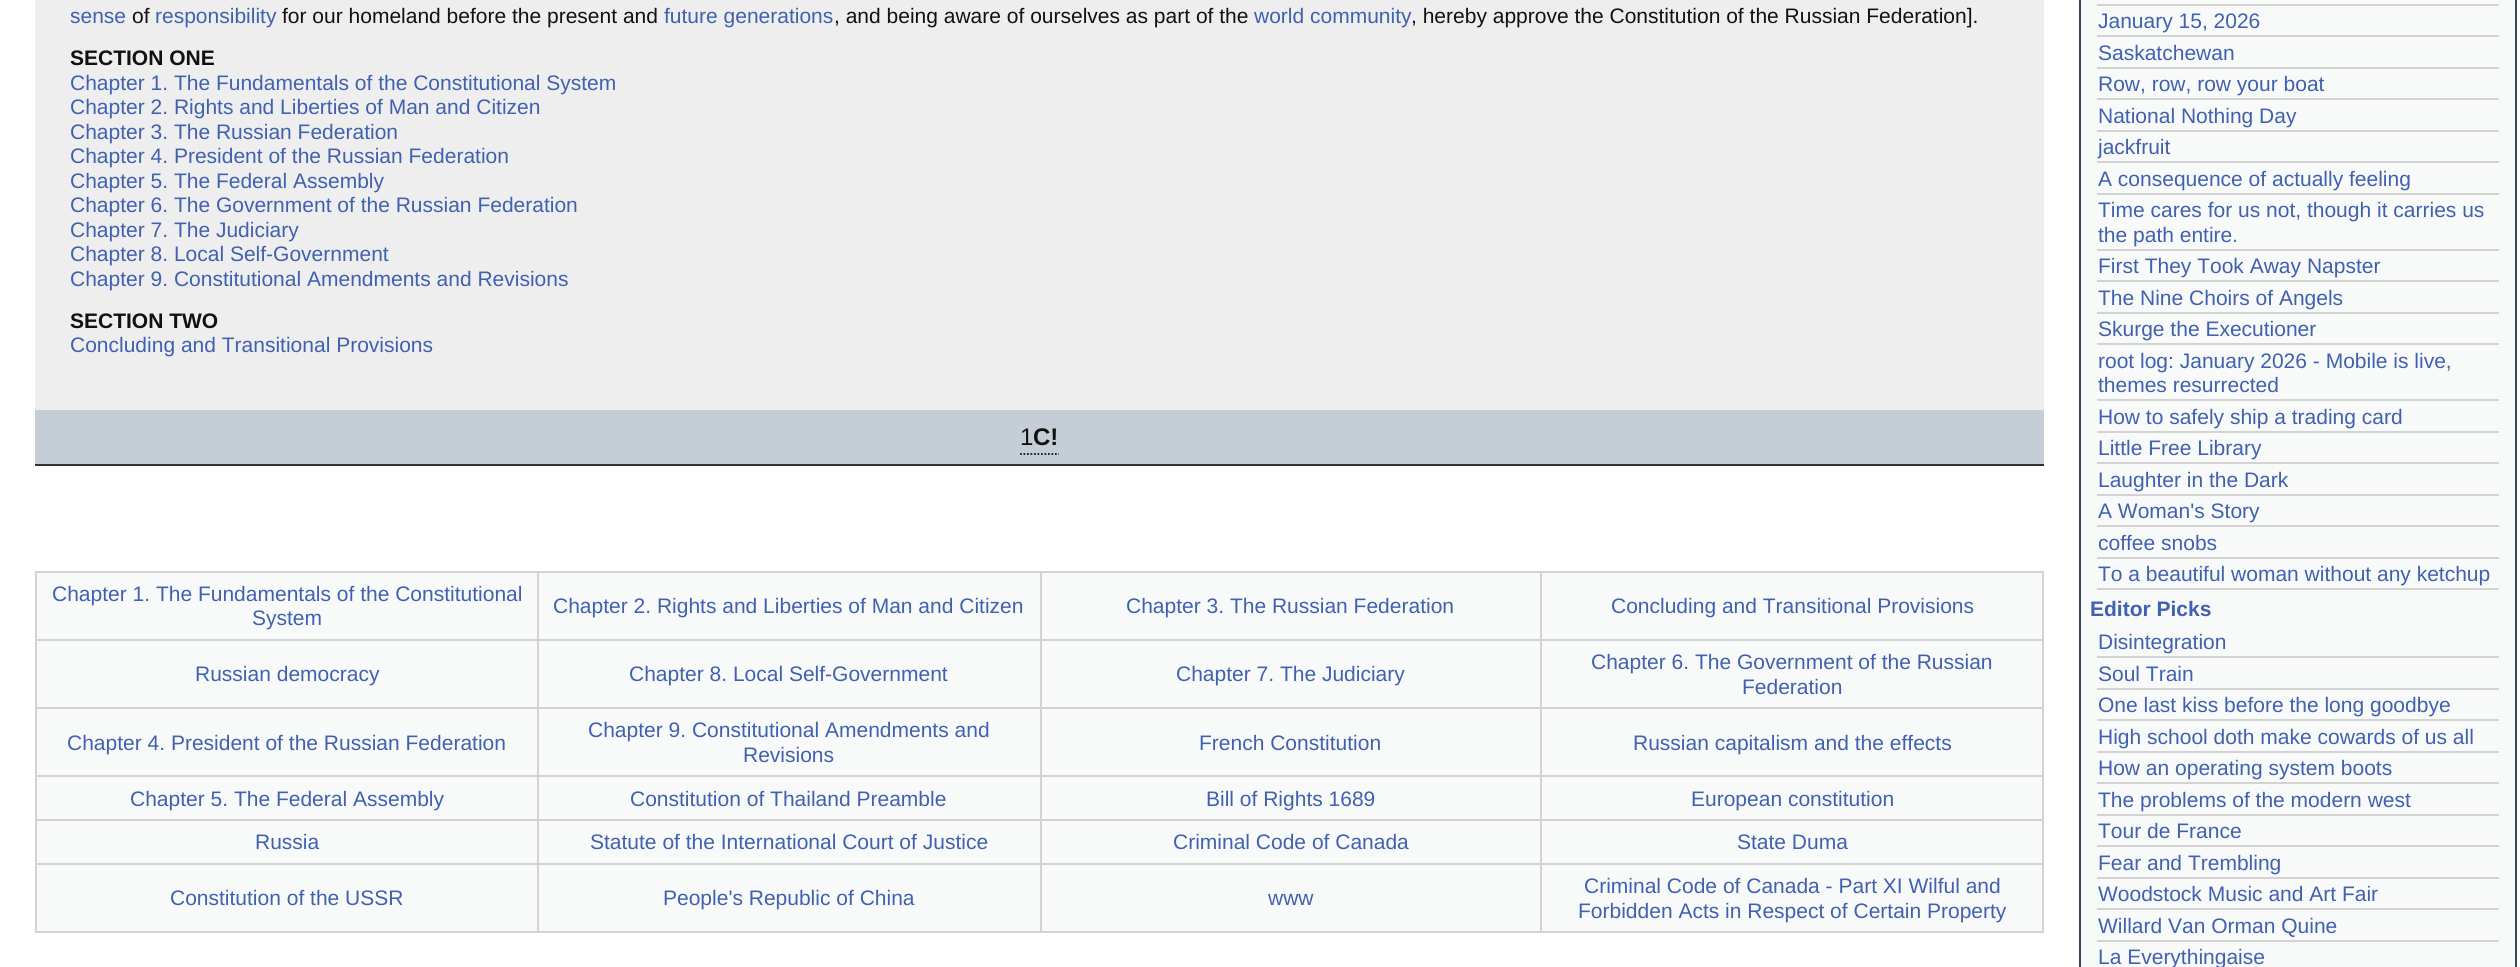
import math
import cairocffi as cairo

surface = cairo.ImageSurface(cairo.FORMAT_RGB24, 2520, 967)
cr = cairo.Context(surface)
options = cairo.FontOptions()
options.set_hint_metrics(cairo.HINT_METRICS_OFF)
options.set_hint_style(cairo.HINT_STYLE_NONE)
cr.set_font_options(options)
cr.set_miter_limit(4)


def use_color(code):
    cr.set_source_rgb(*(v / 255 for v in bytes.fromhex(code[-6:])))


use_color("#ffffff")
cr.paint()
use_color("#eeeeee")
cr.rectangle(35, 0, 2009, 410)
cr.fill()
cr.select_font_face("Liberation Sans")
cr.set_font_size(21)
use_color("#4060b0")
cr.move_to(70, 23)
cr.show_text("sense")
use_color("#111111")
cr.move_to(132, 23)
cr.show_text("of")
use_color("#4060b0")
cr.move_to(155, 23)
cr.show_text("responsibility")
use_color("#111111")
cr.move_to(282, 23)
cr.show_text("for our homeland before the present and")
use_color("#4060b0")
cr.move_to(664, 23)
cr.show_text("future generations")
use_color("#111111")
cr.move_to(834, 23)
cr.show_text(", and being aware of ourselves as part of the")
use_color("#4060b0")
cr.move_to(1254, 23)
cr.show_text("world community")
use_color("#111111")
cr.move_to(1411, 23)
cr.show_text(", hereby approve the Constitution of the Russian Federation].")
cr.select_font_face("Liberation Sans", cairo.FONT_SLANT_NORMAL, cairo.FONT_WEIGHT_BOLD)
cr.move_to(70, 65)
cr.show_text("SECTION ONE")
cr.select_font_face("Liberation Sans")
use_color("#4060b0")
cr.move_to(70, 90)
cr.show_text("Chapter 1. The Fundamentals of the Constitutional System")
cr.move_to(70, 114)
cr.show_text("Chapter 2. Rights and Liberties of Man and Citizen")
cr.move_to(70, 139)
cr.show_text("Chapter 3. The Russian Federation")
cr.move_to(70, 163)
cr.show_text("Chapter 4. President of the Russian Federation")
cr.move_to(70, 188)
cr.show_text("Chapter 5. The Federal Assembly")
cr.move_to(70, 212)
cr.show_text("Chapter 6. The Government of the Russian Federation")
cr.move_to(70, 237)
cr.show_text("Chapter 7. The Judiciary")
cr.move_to(70, 261)
cr.show_text("Chapter 8. Local Self-Government")
cr.move_to(70, 286)
cr.show_text("Chapter 9. Constitutional Amendments and Revisions")
cr.select_font_face("Liberation Sans", cairo.FONT_SLANT_NORMAL, cairo.FONT_WEIGHT_BOLD)
use_color("#111111")
cr.move_to(70, 328)
cr.show_text("SECTION TWO")
cr.select_font_face("Liberation Sans")
use_color("#4060b0")
cr.move_to(70, 352)
cr.show_text("Concluding and Transitional Provisions")
use_color("#c5cdd7")
cr.rectangle(35, 410, 2009, 54)
cr.fill()
use_color("#333333")
cr.rectangle(35, 464, 2009, 2)
cr.fill()
cr.new_path()
cr.move_to(1020, 454)
cr.line_to(1059, 454)
use_color("#111111")
cr.set_line_width(1.8)
cr.set_dash([1.75, 1.75])
cr.stroke()
cr.set_font_size(24)
cr.move_to(1020, 445)
cr.show_text("1")
cr.select_font_face("Liberation Sans", cairo.FONT_SLANT_NORMAL, cairo.FONT_WEIGHT_BOLD)
cr.move_to(1033, 445)
cr.show_text("C!")
use_color("#f8f9f9")
cr.rectangle(37, 573, 500, 66)
cr.fill()
use_color("#d3d3d3")
cr.rectangle(1540, 571, 504, 2)
cr.fill()
cr.rectangle(1540, 639, 504, 2)
cr.fill()
cr.rectangle(1540, 707, 504, 2)
cr.fill()
cr.rectangle(1540, 775, 504, 2)
cr.fill()
cr.rectangle(1540, 819, 504, 2)
cr.fill()
cr.rectangle(1540, 863, 504, 2)
cr.fill()
cr.rectangle(2042, 863, 2, 70)
cr.fill()
cr.rectangle(1540, 931, 504, 2)
cr.fill()
cr.rectangle(1540, 863, 2, 70)
cr.fill()
cr.rectangle(1040, 863, 502, 2)
cr.fill()
cr.rectangle(1540, 819, 2, 46)
cr.fill()
cr.rectangle(1040, 819, 502, 2)
cr.fill()
cr.rectangle(1540, 775, 2, 46)
cr.fill()
cr.rectangle(1040, 775, 502, 2)
cr.fill()
cr.rectangle(1540, 707, 2, 70)
cr.fill()
cr.rectangle(1040, 707, 502, 2)
cr.fill()
cr.rectangle(1540, 639, 2, 70)
cr.fill()
cr.rectangle(1040, 639, 502, 2)
cr.fill()
cr.rectangle(1540, 571, 2, 70)
cr.fill()
cr.rectangle(1040, 571, 502, 2)
cr.fill()
cr.rectangle(1040, 931, 502, 2)
cr.fill()
cr.rectangle(1040, 863, 2, 70)
cr.fill()
cr.rectangle(537, 863, 504, 2)
cr.fill()
cr.rectangle(1040, 819, 2, 46)
cr.fill()
cr.rectangle(537, 819, 504, 2)
cr.fill()
cr.rectangle(1040, 775, 2, 46)
cr.fill()
cr.rectangle(537, 775, 504, 2)
cr.fill()
cr.rectangle(1040, 707, 2, 70)
cr.fill()
cr.rectangle(537, 707, 504, 2)
cr.fill()
cr.rectangle(1040, 639, 2, 70)
cr.fill()
cr.rectangle(537, 639, 504, 2)
cr.fill()
cr.rectangle(1040, 571, 2, 70)
cr.fill()
cr.rectangle(537, 571, 504, 2)
cr.fill()
cr.rectangle(537, 931, 504, 2)
cr.fill()
cr.rectangle(537, 863, 2, 70)
cr.fill()
cr.rectangle(35, 863, 504, 2)
cr.fill()
cr.rectangle(537, 819, 2, 46)
cr.fill()
cr.rectangle(35, 819, 504, 2)
cr.fill()
cr.rectangle(537, 775, 2, 46)
cr.fill()
cr.rectangle(35, 775, 504, 2)
cr.fill()
cr.rectangle(537, 707, 2, 70)
cr.fill()
cr.rectangle(35, 707, 504, 2)
cr.fill()
cr.rectangle(537, 639, 2, 70)
cr.fill()
cr.rectangle(35, 639, 504, 2)
cr.fill()
cr.rectangle(537, 571, 2, 70)
cr.fill()
cr.rectangle(35, 571, 504, 2)
cr.fill()
cr.rectangle(35, 931, 504, 2)
cr.fill()
cr.rectangle(35, 863, 2, 70)
cr.fill()
cr.rectangle(35, 819, 2, 46)
cr.fill()
cr.rectangle(35, 775, 2, 46)
cr.fill()
cr.rectangle(35, 707, 2, 70)
cr.fill()
cr.rectangle(35, 639, 2, 70)
cr.fill()
cr.rectangle(35, 571, 2, 70)
cr.fill()
cr.select_font_face("Liberation Sans")
cr.set_font_size(21)
use_color("#4060b0")
cr.move_to(52, 601)
cr.show_text("Chapter 1. The Fundamentals of the Constitutional")
cr.move_to(252, 625)
cr.show_text("System")
use_color("#f8f9f9")
cr.rectangle(539, 573, 501, 66)
cr.fill()
use_color("#4060b0")
cr.move_to(553, 613)
cr.show_text("Chapter 2. Rights and Liberties of Man and Citizen")
use_color("#f8f9f9")
cr.rectangle(1042, 573, 498, 66)
cr.fill()
use_color("#4060b0")
cr.move_to(1126, 613)
cr.show_text("Chapter 3. The Russian Federation")
use_color("#f8f9f9")
cr.rectangle(1542, 573, 500, 66)
cr.fill()
use_color("#d3d3d3")
cr.rectangle(2042, 819, 2, 46)
cr.fill()
cr.rectangle(2042, 775, 2, 46)
cr.fill()
cr.rectangle(2042, 707, 2, 70)
cr.fill()
cr.rectangle(2042, 639, 2, 70)
cr.fill()
cr.rectangle(2042, 571, 2, 70)
cr.fill()
use_color("#4060b0")
cr.move_to(1611, 613)
cr.show_text("Concluding and Transitional Provisions")
use_color("#f8f9f9")
cr.rectangle(37, 641, 500, 66)
cr.fill()
use_color("#4060b0")
cr.move_to(195, 681)
cr.show_text("Russian democracy")
use_color("#f8f9f9")
cr.rectangle(539, 641, 501, 66)
cr.fill()
use_color("#4060b0")
cr.move_to(629, 681)
cr.show_text("Chapter 8. Local Self-Government")
use_color("#f8f9f9")
cr.rectangle(1042, 641, 498, 66)
cr.fill()
use_color("#4060b0")
cr.move_to(1176, 681)
cr.show_text("Chapter 7. The Judiciary")
use_color("#f8f9f9")
cr.rectangle(1542, 641, 500, 66)
cr.fill()
use_color("#4060b0")
cr.move_to(1591, 669)
cr.show_text("Chapter 6. The Government of the Russian")
cr.move_to(1742, 694)
cr.show_text("Federation")
use_color("#f8f9f9")
cr.rectangle(37, 709, 500, 66)
cr.fill()
use_color("#4060b0")
cr.move_to(67, 750)
cr.show_text("Chapter 4. President of the Russian Federation")
use_color("#f8f9f9")
cr.rectangle(539, 709, 501, 66)
cr.fill()
use_color("#4060b0")
cr.move_to(588, 737)
cr.show_text("Chapter 9. Constitutional Amendments and")
cr.move_to(743, 762)
cr.show_text("Revisions")
use_color("#f8f9f9")
cr.rectangle(1042, 709, 498, 66)
cr.fill()
use_color("#4060b0")
cr.move_to(1199, 750)
cr.show_text("French Constitution")
use_color("#f8f9f9")
cr.rectangle(1542, 709, 500, 66)
cr.fill()
use_color("#4060b0")
cr.move_to(1633, 750)
cr.show_text("Russian capitalism and the effects")
use_color("#f8f9f9")
cr.rectangle(37, 777, 500, 42)
cr.fill()
use_color("#4060b0")
cr.move_to(130, 806)
cr.show_text("Chapter 5. The Federal Assembly")
use_color("#f8f9f9")
cr.rectangle(539, 777, 501, 42)
cr.fill()
use_color("#4060b0")
cr.move_to(630, 806)
cr.show_text("Constitution of Thailand Preamble")
use_color("#f8f9f9")
cr.rectangle(1042, 777, 498, 42)
cr.fill()
use_color("#4060b0")
cr.move_to(1206, 806)
cr.show_text("Bill of Rights 1689")
use_color("#f8f9f9")
cr.rectangle(1542, 777, 500, 42)
cr.fill()
use_color("#4060b0")
cr.move_to(1691, 806)
cr.show_text("European constitution")
use_color("#f8f9f9")
cr.rectangle(37, 821, 500, 42)
cr.fill()
use_color("#4060b0")
cr.move_to(255, 849)
cr.show_text("Russia")
use_color("#f8f9f9")
cr.rectangle(539, 821, 501, 42)
cr.fill()
use_color("#4060b0")
cr.move_to(590, 849)
cr.show_text("Statute of the International Court of Justice")
use_color("#f8f9f9")
cr.rectangle(1042, 821, 498, 42)
cr.fill()
use_color("#4060b0")
cr.move_to(1173, 849)
cr.show_text("Criminal Code of Canada")
use_color("#f8f9f9")
cr.rectangle(1542, 821, 500, 42)
cr.fill()
use_color("#4060b0")
cr.move_to(1737, 849)
cr.show_text("State Duma")
use_color("#f8f9f9")
cr.rectangle(37, 865, 500, 66)
cr.fill()
use_color("#4060b0")
cr.move_to(170, 905)
cr.show_text("Constitution of the USSR")
use_color("#f8f9f9")
cr.rectangle(539, 865, 501, 66)
cr.fill()
use_color("#4060b0")
cr.move_to(663, 905)
cr.show_text("People's Republic of China")
use_color("#f8f9f9")
cr.rectangle(1042, 865, 498, 66)
cr.fill()
use_color("#4060b0")
cr.move_to(1268, 905)
cr.show_text("www")
use_color("#f8f9f9")
cr.rectangle(1542, 865, 500, 66)
cr.fill()
use_color("#4060b0")
cr.move_to(1584, 893)
cr.show_text("Criminal Code of Canada - Part XI Wilful and")
cr.move_to(1578, 918)
cr.show_text("Forbidden Acts in Respect of Certain Property")
use_color("#f8f9f9")
cr.rectangle(2080, -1, 436, 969)
cr.fill_preserve()
use_color("#38495e")
cr.set_line_width(2)
cr.set_dash([])
cr.stroke()
use_color("#d3d3d3")
cr.rectangle(2097, 4, 402, 2)
cr.fill()
cr.rectangle(2097, 35, 402, 2)
cr.fill()
use_color("#4060b0")
cr.move_to(2098, 28)
cr.show_text("January 15, 2026")
use_color("#d3d3d3")
cr.rectangle(2097, 67, 402, 2)
cr.fill()
use_color("#4060b0")
cr.move_to(2098, 60)
cr.show_text("Saskatchewan")
use_color("#d3d3d3")
cr.rectangle(2097, 98, 402, 2)
cr.fill()
use_color("#4060b0")
cr.move_to(2098, 91)
cr.show_text("Row, row, row your boat")
use_color("#d3d3d3")
cr.rectangle(2097, 130, 402, 2)
cr.fill()
use_color("#4060b0")
cr.move_to(2098, 123)
cr.show_text("National Nothing Day")
use_color("#d3d3d3")
cr.rectangle(2097, 161, 402, 2)
cr.fill()
use_color("#4060b0")
cr.move_to(2098, 154)
cr.show_text("jackfruit")
use_color("#d3d3d3")
cr.rectangle(2097, 193, 402, 2)
cr.fill()
use_color("#4060b0")
cr.move_to(2098, 186)
cr.show_text("A consequence of actually feeling")
use_color("#d3d3d3")
cr.rectangle(2097, 249, 402, 2)
cr.fill()
use_color("#4060b0")
cr.move_to(2098, 217)
cr.show_text("Time cares for us not, though it carries us")
cr.move_to(2098, 242)
cr.show_text("the path entire.")
use_color("#d3d3d3")
cr.rectangle(2097, 280, 402, 2)
cr.fill()
use_color("#4060b0")
cr.move_to(2098, 273)
cr.show_text("First They Took Away Napster")
use_color("#d3d3d3")
cr.rectangle(2097, 312, 402, 2)
cr.fill()
use_color("#4060b0")
cr.move_to(2098, 305)
cr.show_text("The Nine Choirs of Angels")
use_color("#d3d3d3")
cr.rectangle(2097, 343, 402, 2)
cr.fill()
use_color("#4060b0")
cr.move_to(2098, 336)
cr.show_text("Skurge the Executioner")
use_color("#d3d3d3")
cr.rectangle(2097, 399, 402, 2)
cr.fill()
use_color("#4060b0")
cr.move_to(2098, 368)
cr.show_text("root log: January 2026 - Mobile is live,")
cr.move_to(2098, 392)
cr.show_text("themes resurrected")
use_color("#d3d3d3")
cr.rectangle(2097, 431, 402, 2)
cr.fill()
use_color("#4060b0")
cr.move_to(2098, 424)
cr.show_text("How to safely ship a trading card")
use_color("#d3d3d3")
cr.rectangle(2097, 462, 402, 2)
cr.fill()
use_color("#4060b0")
cr.move_to(2098, 455)
cr.show_text("Little Free Library")
use_color("#d3d3d3")
cr.rectangle(2097, 494, 402, 2)
cr.fill()
use_color("#4060b0")
cr.move_to(2098, 487)
cr.show_text("Laughter in the Dark")
use_color("#d3d3d3")
cr.rectangle(2097, 525, 402, 2)
cr.fill()
use_color("#4060b0")
cr.move_to(2098, 518)
cr.show_text("A Woman's Story")
use_color("#d3d3d3")
cr.rectangle(2097, 557, 402, 2)
cr.fill()
use_color("#4060b0")
cr.move_to(2098, 550)
cr.show_text("coffee snobs")
use_color("#d3d3d3")
cr.rectangle(2097, 588, 402, 2)
cr.fill()
use_color("#4060b0")
cr.move_to(2098, 581)
cr.show_text("To a beautiful woman without any ketchup")
cr.select_font_face("Liberation Sans", cairo.FONT_SLANT_NORMAL, cairo.FONT_WEIGHT_BOLD)
cr.move_to(2090, 616)
cr.show_text("Editor Picks")
use_color("#d3d3d3")
cr.rectangle(2097, 656, 402, 2)
cr.fill()
cr.select_font_face("Liberation Sans")
use_color("#4060b0")
cr.move_to(2098, 649)
cr.show_text("Disintegration")
use_color("#d3d3d3")
cr.rectangle(2097, 688, 402, 2)
cr.fill()
use_color("#4060b0")
cr.move_to(2098, 681)
cr.show_text("Soul Train")
use_color("#d3d3d3")
cr.rectangle(2097, 719, 402, 2)
cr.fill()
use_color("#4060b0")
cr.move_to(2098, 712)
cr.show_text("One last kiss before the long goodbye")
use_color("#d3d3d3")
cr.rectangle(2097, 751, 402, 2)
cr.fill()
use_color("#4060b0")
cr.move_to(2098, 744)
cr.show_text("High school doth make cowards of us all")
use_color("#d3d3d3")
cr.rectangle(2097, 782, 402, 2)
cr.fill()
use_color("#4060b0")
cr.move_to(2098, 775)
cr.show_text("How an operating system boots")
use_color("#d3d3d3")
cr.rectangle(2097, 814, 402, 2)
cr.fill()
use_color("#4060b0")
cr.move_to(2098, 807)
cr.show_text("The problems of the modern west")
use_color("#d3d3d3")
cr.rectangle(2097, 845, 402, 2)
cr.fill()
use_color("#4060b0")
cr.move_to(2098, 838)
cr.show_text("Tour de France")
use_color("#d3d3d3")
cr.rectangle(2097, 877, 402, 2)
cr.fill()
use_color("#4060b0")
cr.move_to(2098, 870)
cr.show_text("Fear and Trembling")
use_color("#d3d3d3")
cr.rectangle(2097, 908, 402, 2)
cr.fill()
use_color("#4060b0")
cr.move_to(2098, 901)
cr.show_text("Woodstock Music and Art Fair")
use_color("#d3d3d3")
cr.rectangle(2097, 940, 402, 2)
cr.fill()
use_color("#4060b0")
cr.move_to(2098, 933)
cr.show_text("Willard Van Orman Quine")
cr.move_to(2098, 964)
cr.show_text("La Everythingaise")
surface.write_to_png("result.png")
